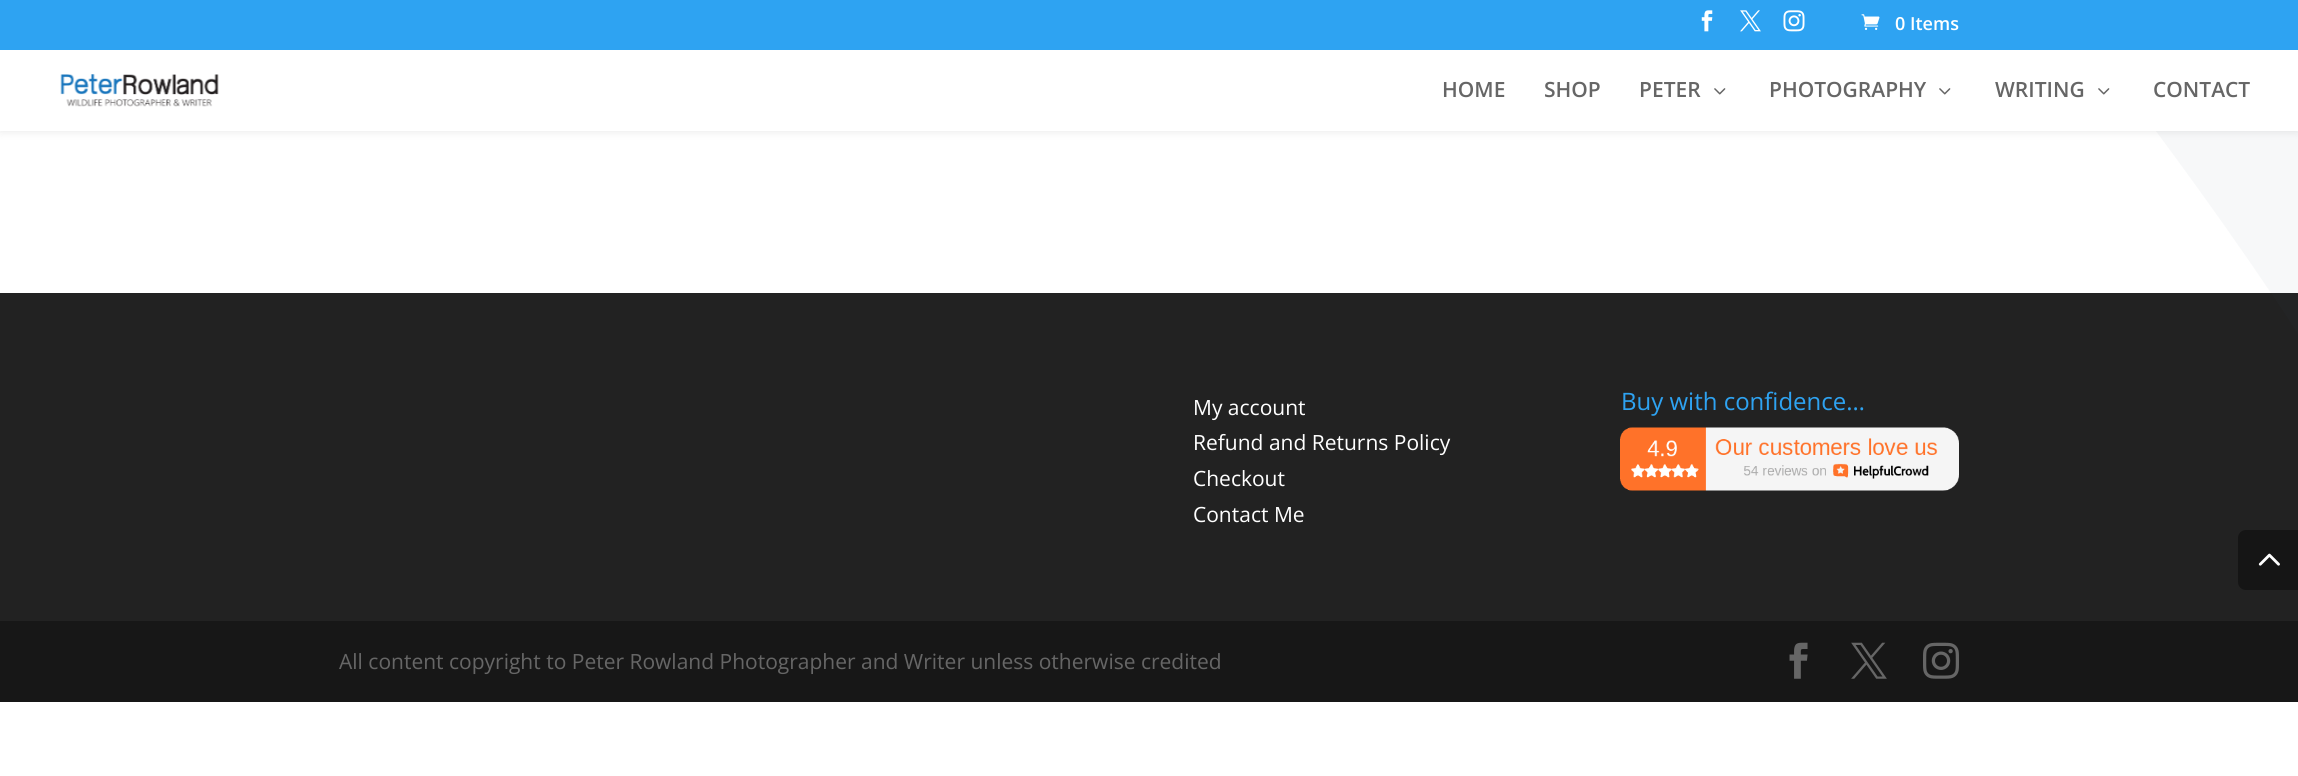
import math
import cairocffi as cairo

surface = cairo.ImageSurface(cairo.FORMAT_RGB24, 2298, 776)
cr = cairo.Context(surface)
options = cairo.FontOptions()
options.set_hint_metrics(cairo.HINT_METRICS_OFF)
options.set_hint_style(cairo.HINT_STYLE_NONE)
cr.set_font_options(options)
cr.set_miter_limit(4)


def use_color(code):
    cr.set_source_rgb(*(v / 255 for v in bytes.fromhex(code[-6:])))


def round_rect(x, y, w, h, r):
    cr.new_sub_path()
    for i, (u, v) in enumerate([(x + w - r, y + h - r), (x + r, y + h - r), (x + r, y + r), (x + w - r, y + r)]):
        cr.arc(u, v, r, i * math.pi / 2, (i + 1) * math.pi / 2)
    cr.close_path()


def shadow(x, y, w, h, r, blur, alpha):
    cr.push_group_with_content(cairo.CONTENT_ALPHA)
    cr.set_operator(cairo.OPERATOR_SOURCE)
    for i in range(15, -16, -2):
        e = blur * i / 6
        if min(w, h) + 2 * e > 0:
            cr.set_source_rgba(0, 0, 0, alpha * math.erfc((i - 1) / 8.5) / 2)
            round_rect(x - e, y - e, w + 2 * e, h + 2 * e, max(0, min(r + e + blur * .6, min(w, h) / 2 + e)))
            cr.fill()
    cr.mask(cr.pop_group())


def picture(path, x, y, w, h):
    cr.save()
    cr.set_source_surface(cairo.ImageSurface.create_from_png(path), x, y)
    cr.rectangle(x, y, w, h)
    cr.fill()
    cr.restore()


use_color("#ffffff")
cr.paint()
use_color("#222222")
cr.rectangle(0, 293, 2298, 328)
cr.fill()
cr.set_source_rgba(0.286, 0.306, 0.42, 0.04)
cr.new_path()
cr.move_to(2298, -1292)
cr.line_to(0, -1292)
cr.curve_to(1269, -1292, 2298, 334, 2298, 334)
cr.close_path()
cr.fill()
use_color("#000000")
shadow(0, 50, 2298, 81, 0, 5, 0.1)
use_color("#2ea3f2")
cr.rectangle(0, 0, 2298, 50)
cr.fill()
picture("img1.png", 1701, 10, 12, 22)
picture("img2.png", 1740, 10, 21, 22)
picture("img3.png", 1783, 10, 22, 22)
picture("img4.png", 1861, 14, 19, 16)
cr.select_font_face("Open Sans SemiBold")
cr.set_font_size(18)
use_color("#ffffff")
cr.move_to(1895, 30)
cr.show_text("0 Items")
cr.rectangle(0, 50, 2298, 81)
cr.fill()
picture("img5.png", 60, 74, 159, 33)
cr.set_font_size(21)
use_color("#666666")
cr.move_to(1442, 97)
cr.show_text("HOME")
cr.move_to(1544, 97)
cr.show_text("SHOP")
cr.move_to(1639, 97)
cr.show_text("PETER")
picture("img6.png", 1714, 88, 12, 7)
cr.move_to(1769, 97)
cr.show_text("PHOTOGRAPHY")
picture("img6.png", 1939, 88, 12, 7)
cr.move_to(1995, 97)
cr.show_text("WRITING")
picture("img6.png", 2098, 88, 12, 7)
cr.move_to(2153, 97)
cr.show_text("CONTACT")
cr.select_font_face("Open Sans")
use_color("#ffffff")
cr.move_to(1193, 415)
cr.show_text("My account")
cr.move_to(1193, 450)
cr.show_text("Refund and Returns Policy")
cr.move_to(1193, 486)
cr.show_text("Checkout")
cr.move_to(1193, 522)
cr.show_text("Contact Me")
cr.set_font_size(24)
use_color("#2ea3f2")
cr.move_to(1621, 410)
cr.show_text("Buy with confidence…")
picture("img7.png", 1620, 427, 339, 64)
use_color("#171717")
cr.rectangle(0, 621, 2298, 81)
cr.fill()
cr.set_font_size(21)
use_color("#666666")
cr.move_to(339, 669)
cr.show_text("All content copyright to Peter Rowland Photographer and Writer unless otherwise credited")
picture("img8.png", 1789, 642, 19, 37)
picture("img9.png", 1851, 642, 36, 37)
picture("img10.png", 1923, 642, 36, 37)
use_color("#151515")
cr.new_path()
cr.move_to(2246, 530)
cr.line_to(2298, 530)
cr.line_to(2298, 590)
cr.line_to(2246, 590)
cr.curve_to(2241.5, 590, 2238, 586.5, 2238, 582)
cr.line_to(2238, 538)
cr.curve_to(2238, 533.5, 2241.5, 530, 2246, 530)
cr.close_path()
cr.fill()
picture("img11.png", 2258, 553, 22, 13)
surface.write_to_png("result.png")
